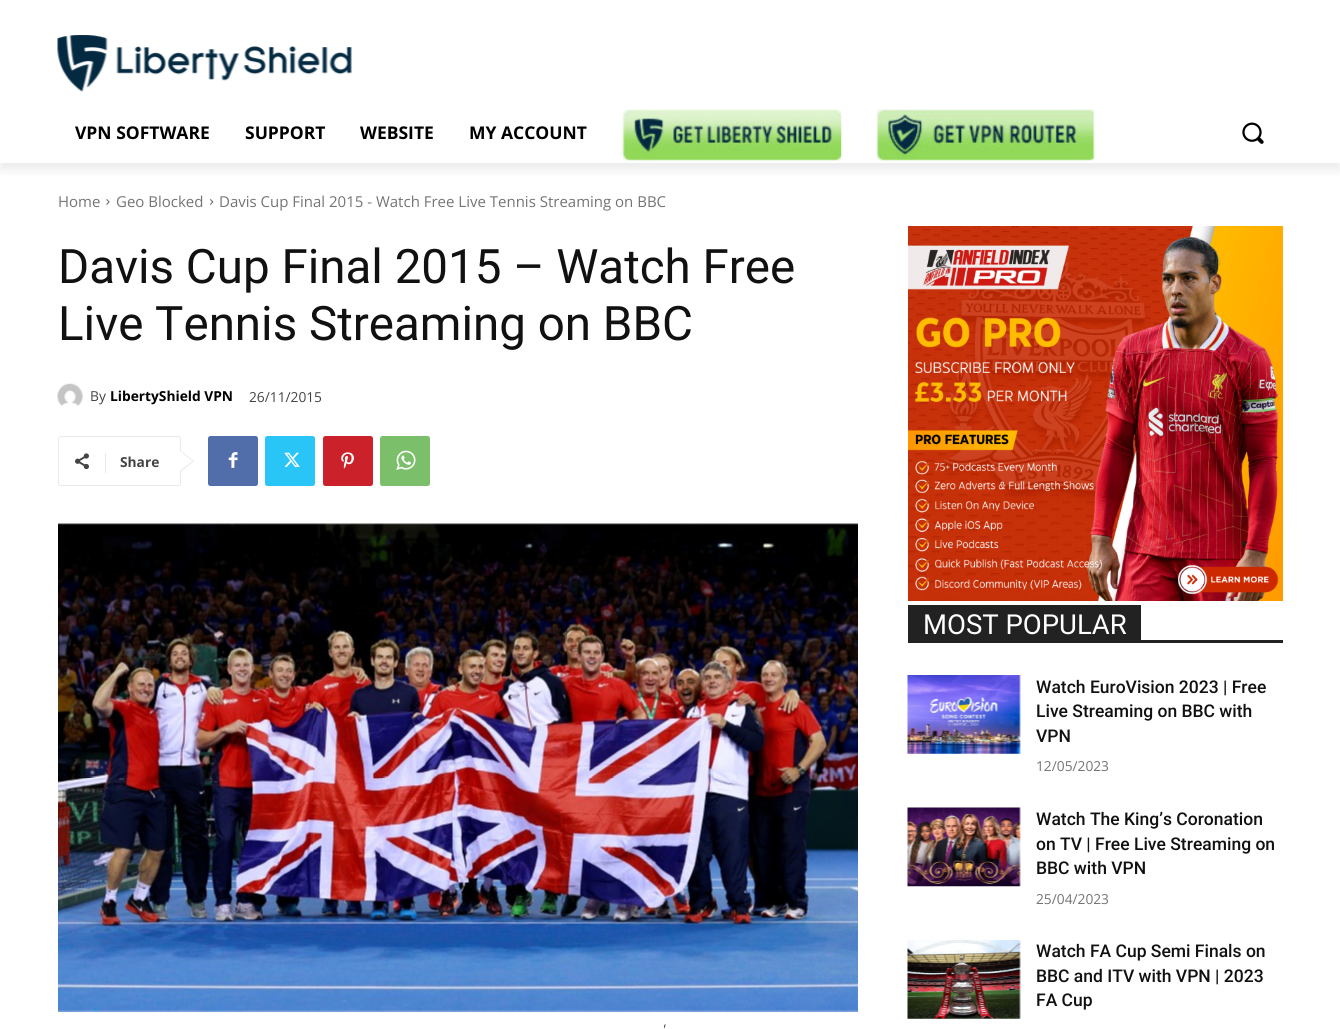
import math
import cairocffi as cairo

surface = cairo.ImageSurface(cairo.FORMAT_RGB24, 1340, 1029)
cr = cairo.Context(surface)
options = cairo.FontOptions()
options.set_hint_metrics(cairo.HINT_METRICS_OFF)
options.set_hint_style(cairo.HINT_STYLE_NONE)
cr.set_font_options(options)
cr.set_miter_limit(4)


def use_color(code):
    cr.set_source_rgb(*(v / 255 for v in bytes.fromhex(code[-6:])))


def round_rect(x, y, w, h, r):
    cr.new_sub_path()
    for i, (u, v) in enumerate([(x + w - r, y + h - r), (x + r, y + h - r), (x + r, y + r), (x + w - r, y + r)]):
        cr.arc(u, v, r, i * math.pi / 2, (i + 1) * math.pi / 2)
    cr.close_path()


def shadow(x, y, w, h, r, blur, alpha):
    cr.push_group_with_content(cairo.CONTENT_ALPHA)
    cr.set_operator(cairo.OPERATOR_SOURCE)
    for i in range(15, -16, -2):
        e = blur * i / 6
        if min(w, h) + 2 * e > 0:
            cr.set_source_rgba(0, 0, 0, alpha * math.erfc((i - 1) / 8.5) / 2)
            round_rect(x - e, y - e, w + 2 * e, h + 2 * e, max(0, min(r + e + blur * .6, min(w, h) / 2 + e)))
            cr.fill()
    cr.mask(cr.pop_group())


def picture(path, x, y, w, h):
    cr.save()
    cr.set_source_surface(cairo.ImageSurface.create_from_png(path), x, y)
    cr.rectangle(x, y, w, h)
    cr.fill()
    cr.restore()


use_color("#ffffff")
cr.paint()
picture("img1.png", 57, 35, 295, 57)
cr.save()
cr.set_fill_rule(cairo.FILL_RULE_EVEN_ODD)
cr.new_path()
cr.move_to(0, 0)
cr.line_to(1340, 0)
cr.line_to(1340, 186)
cr.line_to(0, 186)
cr.close_path()
cr.move_to(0, 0)
cr.line_to(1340, 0)
cr.line_to(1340, 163)
cr.line_to(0, 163)
cr.close_path()
cr.clip()
use_color("#000000")
shadow(0, 8, 1340, 162, 0, 5, 0.08)
cr.restore()
cr.select_font_face("Open Sans", cairo.FONT_SLANT_NORMAL, cairo.FONT_WEIGHT_BOLD)
cr.set_font_size(17.5)
use_color("#000000")
cr.move_to(75, 139)
cr.show_text("VPN SOFTWARE")
cr.move_to(245, 139)
cr.show_text("SUPPORT")
cr.move_to(360, 139)
cr.show_text("WEBSITE")
cr.move_to(469, 139)
cr.show_text("MY ACCOUNT")
picture("img2.png", 622, 109, 220, 52)
picture("img3.png", 876, 109, 219, 52)
picture("img4.png", 1242, 122, 22, 22)
cr.select_font_face("Open Sans")
cr.set_font_size(15)
use_color("#747474")
cr.move_to(58, 207)
cr.show_text("Home")
picture("img5.png", 106, 199, 4, 6)
cr.move_to(116, 207)
cr.show_text("Geo Blocked")
picture("img6.png", 210, 199, 4, 6)
cr.move_to(219, 207)
cr.show_text("Davis Cup Final 2015 - Watch Free Live Tennis Streaming on BBC")
cr.select_font_face("Roboto")
cr.set_font_size(47.5)
use_color("#111111")
cr.move_to(58, 283)
cr.show_text("Davis Cup Final 2015 – Watch Free")
cr.move_to(58, 340)
cr.show_text("Live Tennis Streaming on BBC")
picture("img7.png", 57, 383, 26, 23)
cr.select_font_face("Open Sans")
cr.set_font_size(13.75)
use_color("#444444")
cr.move_to(90, 401)
cr.show_text("By")
cr.select_font_face("Open Sans", cairo.FONT_SLANT_NORMAL, cairo.FONT_WEIGHT_BOLD)
use_color("#000000")
cr.move_to(110, 401)
cr.show_text("LibertyShield VPN")
cr.select_font_face("Open Sans")
use_color("#444444")
cr.move_to(249, 402)
cr.show_text("26/11/2015")
round_rect(58.5, 436.5, 122, 49, 2)
use_color("#e9e9e9")
cr.set_line_width(1)
cr.stroke()
cr.new_path()
cr.move_to(180, 472.5)
cr.line_to(180, 450)
cr.line_to(194, 461)
cr.close_path()
cr.fill()
picture("img8.png", 75, 453, 14, 17)
use_color("#ebebeb")
cr.rectangle(105, 453, 1, 20)
cr.fill()
cr.select_font_face("Open Sans", cairo.FONT_SLANT_NORMAL, cairo.FONT_WEIGHT_BOLD)
use_color("#444444")
cr.move_to(120, 467)
cr.show_text("Share")
use_color("#ffffff")
cr.new_path()
cr.move_to(180, 471)
cr.line_to(180, 451)
cr.line_to(192.5, 461)
cr.close_path()
cr.fill()
use_color("#516eab")
round_rect(208, 436, 50, 50, 2.5)
cr.fill()
picture("img9.png", 228, 452, 10, 16)
use_color("#29c5f6")
round_rect(265, 436, 50, 50, 2.5)
cr.fill()
picture("img10.png", 284, 452, 16, 15)
use_color("#ca212a")
round_rect(323, 436, 50, 50, 2.5)
cr.fill()
picture("img11.png", 341, 452, 13, 17)
use_color("#7bbf6a")
round_rect(380, 436, 50, 50, 2.5)
cr.fill()
picture("img12.png", 396, 450, 20, 20)
picture("img13.png", 58, 523, 800, 489)
cr.select_font_face("Source Sans Pro", cairo.FONT_SLANT_ITALIC)
use_color("#444444")
cr.move_to(661, 1034)
cr.show_text("'")
picture("img14.png", 908, 226, 375, 375)
use_color("#222222")
cr.rectangle(908, 640, 375, 3)
cr.fill()
cr.rectangle(908, 605, 233, 35)
cr.fill()
cr.select_font_face("Roboto")
cr.set_font_size(27.5)
use_color("#ffffff")
cr.move_to(923, 634)
cr.show_text("MOST POPULAR")
picture("img15.png", 907, 675, 114, 79)
cr.select_font_face("Roboto Medium")
cr.set_font_size(17.5)
use_color("#111111")
cr.move_to(1036, 693)
cr.show_text("Watch EuroVision 2023 | Free")
cr.move_to(1036, 717)
cr.show_text("Live Streaming on BBC with")
cr.move_to(1036, 742)
cr.show_text("VPN")
cr.select_font_face("Open Sans")
cr.set_font_size(13.75)
use_color("#747474")
cr.move_to(1036, 771)
cr.show_text("12/05/2023")
picture("img16.png", 907, 807, 114, 80)
cr.select_font_face("Roboto Medium")
cr.set_font_size(17.5)
use_color("#111111")
cr.move_to(1036, 825)
cr.show_text("Watch The King’s Coronation")
cr.move_to(1036, 850)
cr.show_text("on TV | Free Live Streaming on")
cr.move_to(1036, 874)
cr.show_text("BBC with VPN")
cr.select_font_face("Open Sans")
cr.set_font_size(13.75)
use_color("#747474")
cr.move_to(1036, 904)
cr.show_text("25/04/2023")
picture("img17.png", 907, 940, 114, 79)
cr.select_font_face("Roboto Medium")
cr.set_font_size(17.5)
use_color("#111111")
cr.move_to(1036, 957)
cr.show_text("Watch FA Cup Semi Finals on")
cr.move_to(1036, 982)
cr.show_text("BBC and ITV with VPN | 2023")
cr.move_to(1036, 1006)
cr.show_text("FA Cup")
surface.write_to_png("result.png")
